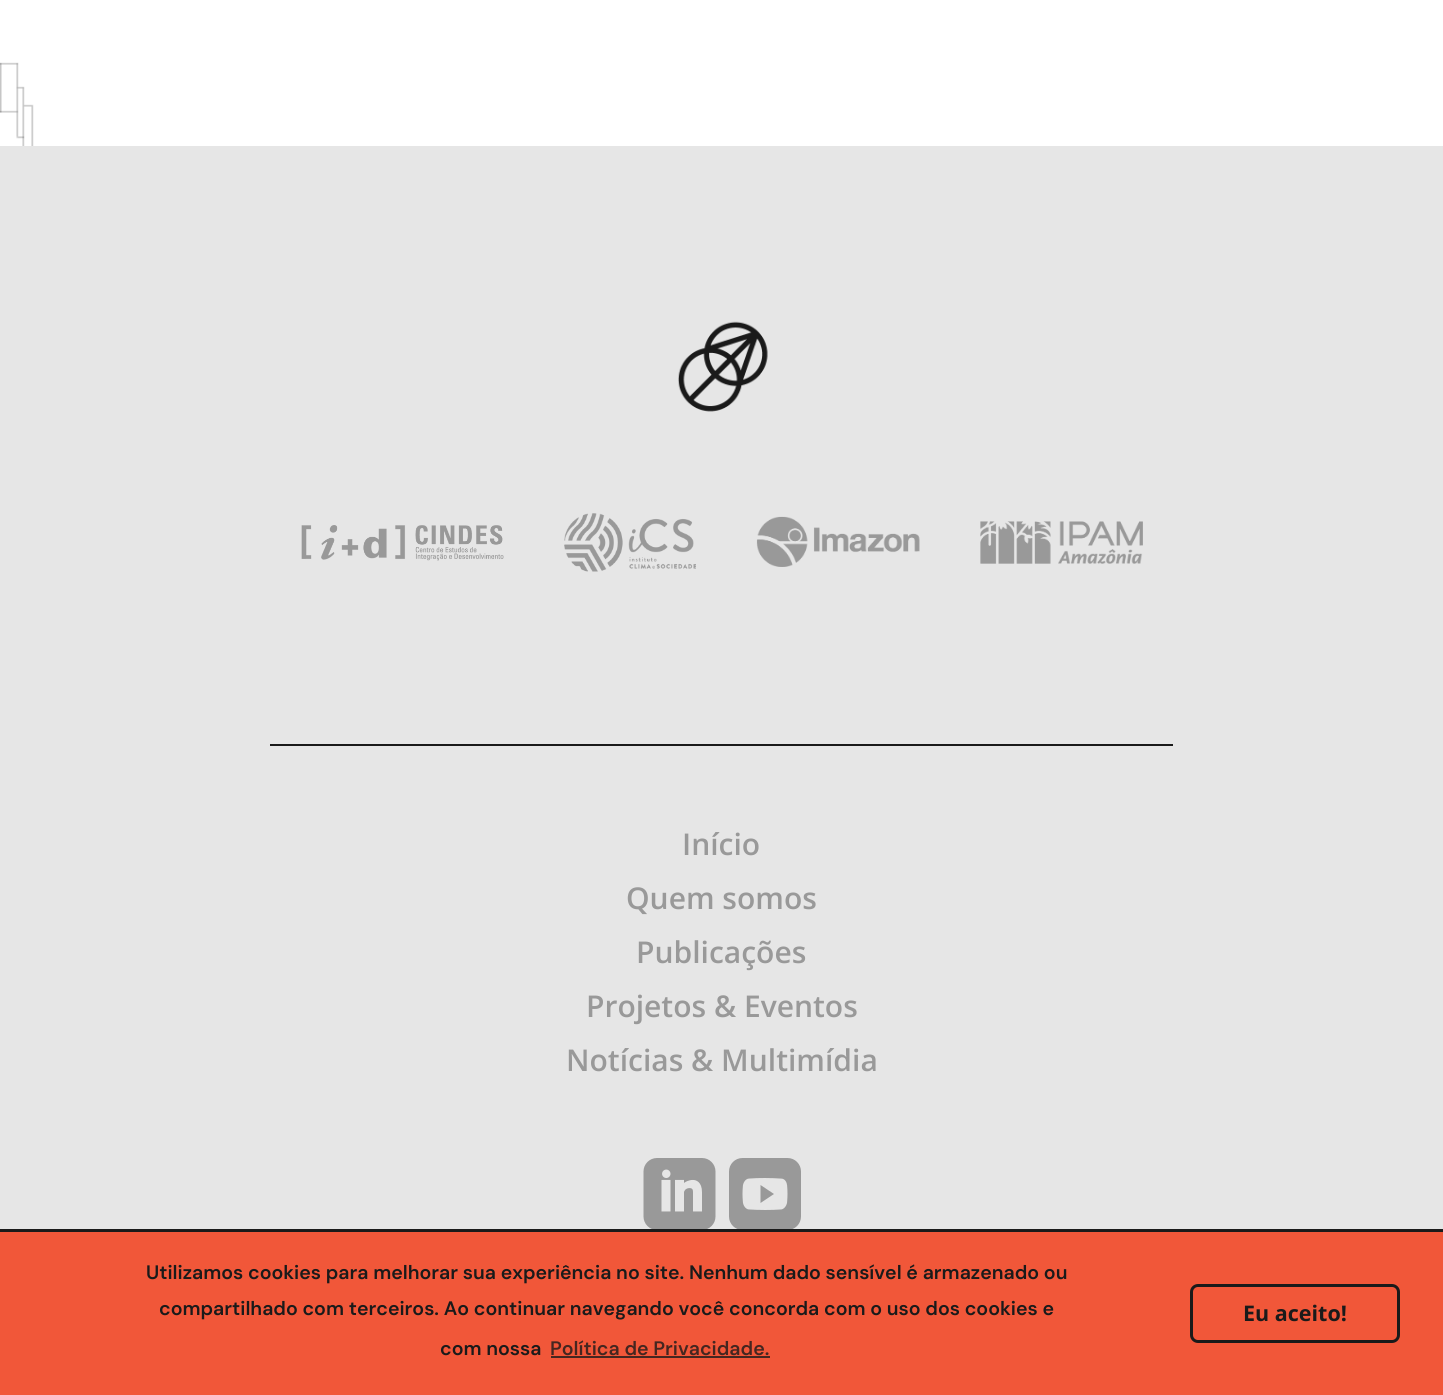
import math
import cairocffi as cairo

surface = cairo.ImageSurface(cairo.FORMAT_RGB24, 1443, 1395)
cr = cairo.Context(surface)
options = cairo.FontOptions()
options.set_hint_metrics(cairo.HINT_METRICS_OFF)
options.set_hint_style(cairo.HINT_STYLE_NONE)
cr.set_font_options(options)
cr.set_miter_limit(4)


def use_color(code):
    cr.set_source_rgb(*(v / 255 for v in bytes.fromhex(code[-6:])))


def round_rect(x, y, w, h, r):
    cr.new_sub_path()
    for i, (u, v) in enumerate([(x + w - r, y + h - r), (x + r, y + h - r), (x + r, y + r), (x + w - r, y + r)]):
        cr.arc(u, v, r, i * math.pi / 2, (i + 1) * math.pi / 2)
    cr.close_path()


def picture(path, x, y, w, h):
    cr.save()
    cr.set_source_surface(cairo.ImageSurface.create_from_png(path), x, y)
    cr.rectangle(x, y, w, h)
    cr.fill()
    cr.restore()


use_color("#ffffff")
cr.paint()
picture("img1.png", 0, 62, 98, 84)
use_color("#e6e6e6")
cr.rectangle(0, 146, 1443, 1083)
cr.fill()
picture("img2.png", 678, 321, 90, 91)
picture("img3.png", 301, 525, 203, 36)
picture("img4.png", 564, 513, 132, 59)
picture("img5.png", 756, 516, 164, 51)
picture("img6.png", 980, 521, 163, 43)
use_color("#1a1a1a")
cr.rectangle(270, 744, 903, 2)
cr.fill()
cr.select_font_face("Open Sans SemiBold")
cr.set_font_size(30)
use_color("#999999")
cr.move_to(682, 855)
cr.show_text("Início")
cr.move_to(626, 909)
cr.show_text("Quem somos")
cr.move_to(636, 963)
cr.show_text("Publicações")
cr.move_to(586, 1017)
cr.show_text("Projetos & Eventos")
cr.move_to(566, 1071)
cr.show_text("Notícias & Multimídia")
picture("img7.png", 643, 1158, 73, 71)
picture("img8.png", 729, 1158, 72, 71)
use_color("#f15739")
cr.rectangle(0, 1232, 1443, 163)
cr.fill()
use_color("#1a1a1a")
cr.rectangle(0, 1229, 1443, 3)
cr.fill()
cr.select_font_face("DM Sans SemiBold")
cr.set_font_size(19.5)
cr.move_to(146, 1279)
cr.show_text("Utilizamos cookies para melhorar sua experiência no site. Nenhum dado sensível é armazenado ou")
cr.move_to(159, 1315)
cr.show_text("compartilhado com terceiros. Ao continuar navegando você concorda com o uso dos cookies e")
cr.move_to(440, 1355)
cr.show_text("com nossa")
use_color("#452620")
cr.move_to(550, 1355)
cr.show_text("Política de Privacidade.")
cr.rectangle(551, 1356, 219, 2)
cr.fill()
round_rect(1191.5, 1285.5, 207, 56, 6.5)
use_color("#1a1a1a")
cr.set_line_width(3)
cr.stroke()
cr.select_font_face("Open Sans", cairo.FONT_SLANT_NORMAL, cairo.FONT_WEIGHT_BOLD)
cr.set_font_size(21.5)
cr.move_to(1243, 1321)
cr.show_text("Eu aceito!")
surface.write_to_png("result.png")
